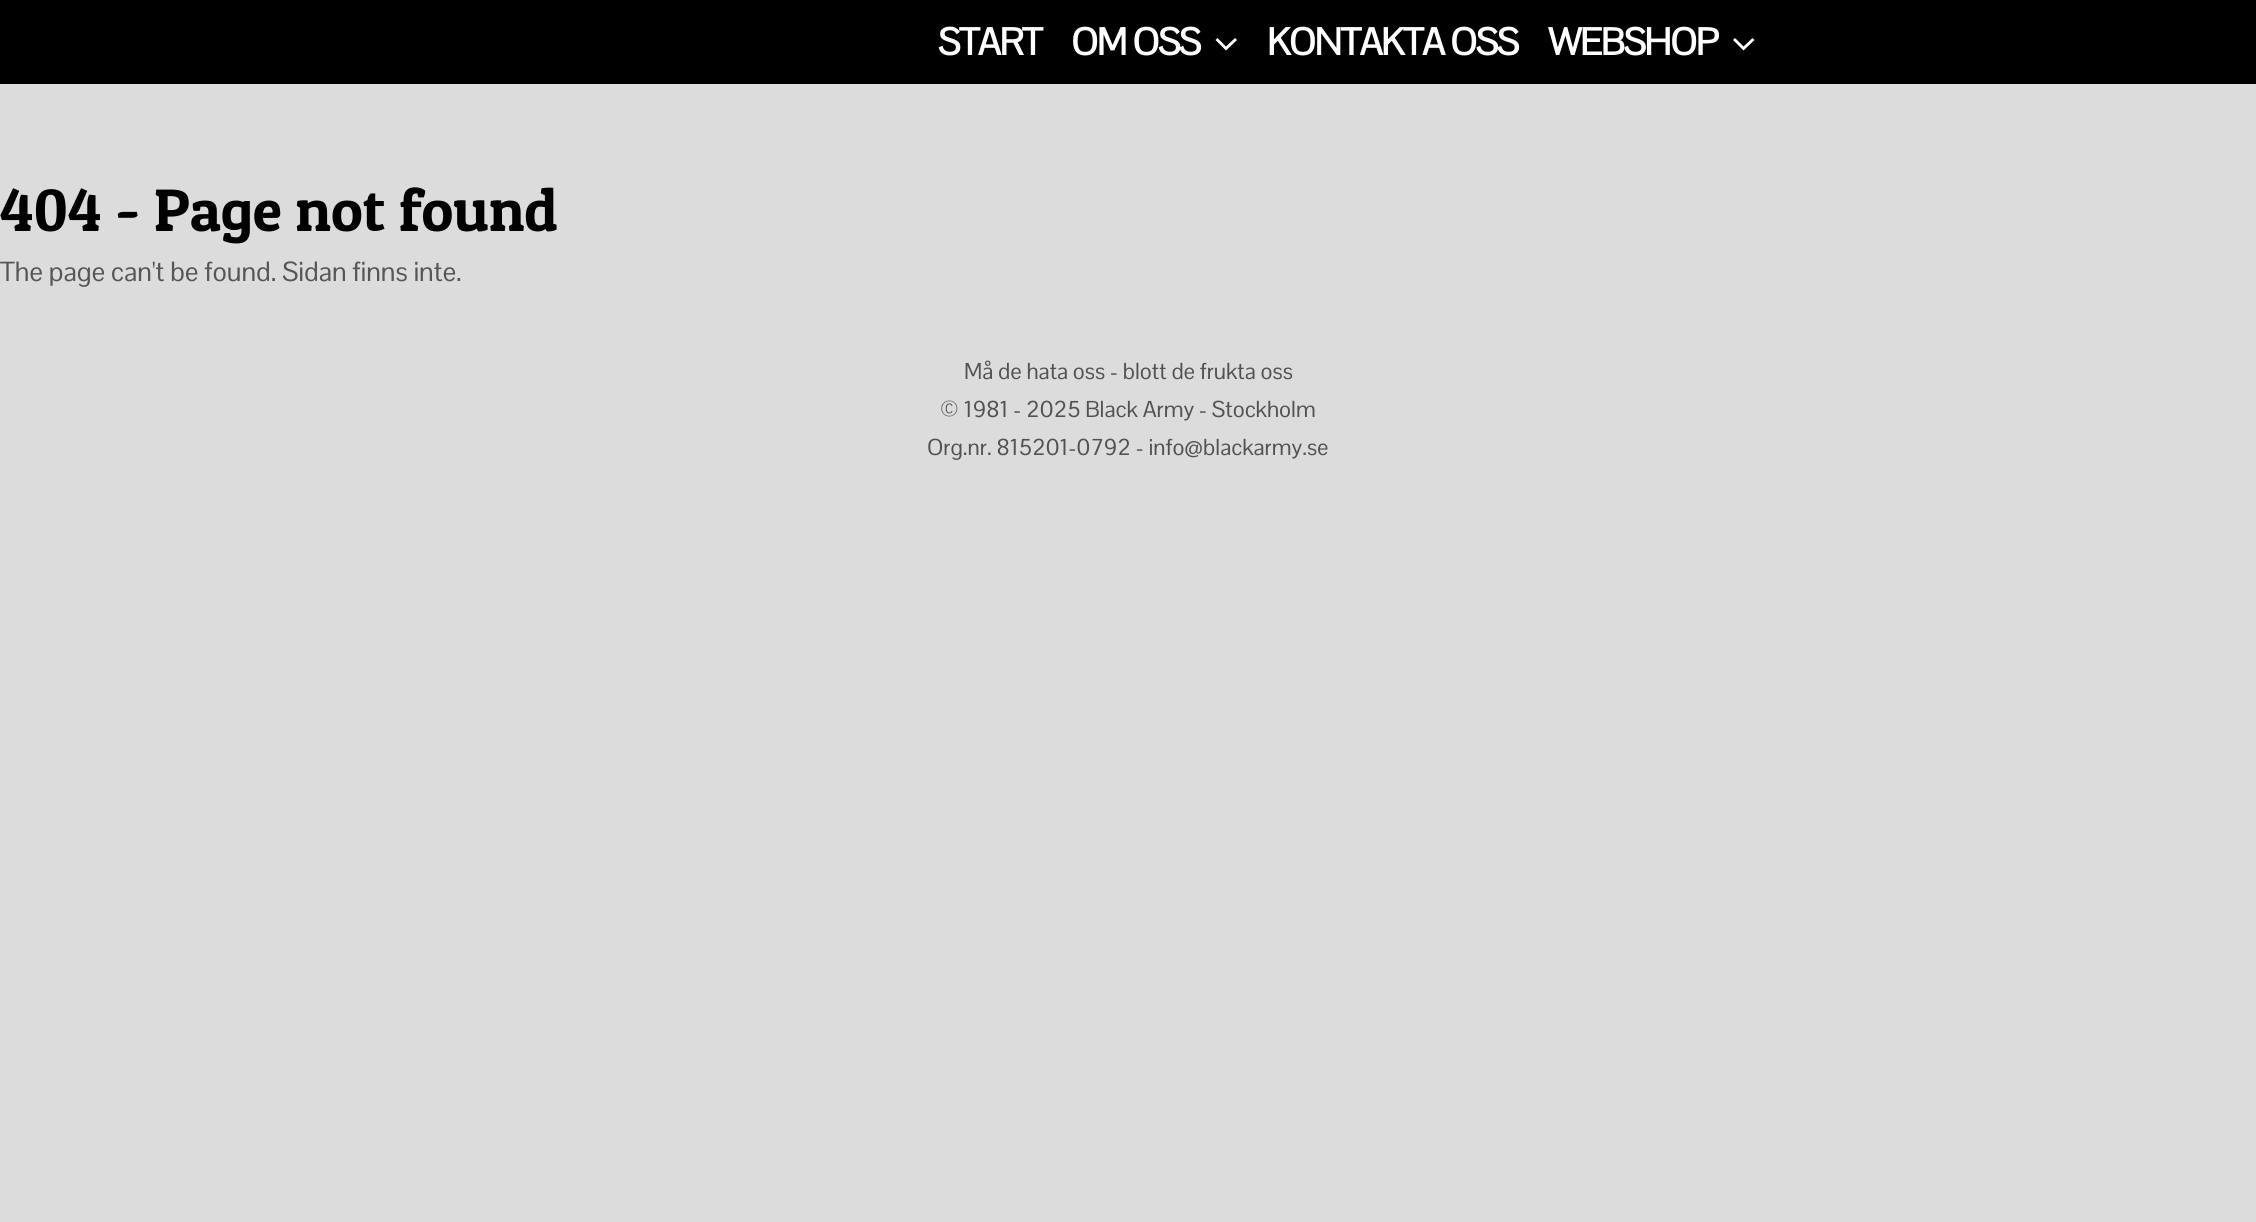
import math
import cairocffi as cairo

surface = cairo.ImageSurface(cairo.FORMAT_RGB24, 2256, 1222)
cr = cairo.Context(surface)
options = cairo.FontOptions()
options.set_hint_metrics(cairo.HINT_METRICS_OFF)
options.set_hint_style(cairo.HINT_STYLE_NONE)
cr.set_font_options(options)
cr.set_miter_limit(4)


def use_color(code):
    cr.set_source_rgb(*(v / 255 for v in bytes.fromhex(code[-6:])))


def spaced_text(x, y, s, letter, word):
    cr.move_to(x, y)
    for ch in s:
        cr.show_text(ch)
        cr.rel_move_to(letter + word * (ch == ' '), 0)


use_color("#dcdcdc")
cr.paint()
use_color("#000000")
cr.rectangle(0, 0, 2256, 84)
cr.fill()
cr.select_font_face("Pontano Sans", cairo.FONT_SLANT_NORMAL, cairo.FONT_WEIGHT_BOLD)
cr.set_font_size(37.5)
use_color("#ffffff")
spaced_text(938, 55, "START", -1.5, 0)
spaced_text(1071, 55, "OM OSS", -1.5, 0)
cr.new_path()
cr.move_to(1215.5, 40)
cr.line_to(1226, 50.5)
cr.line_to(1237, 40)
cr.line_to(1235, 38)
cr.line_to(1226, 46.5)
cr.line_to(1217.5, 38)
cr.close_path()
cr.fill()
spaced_text(1267, 55, "KONTAKTA OSS", -1.5, 0)
spaced_text(1548, 55, "WEBSHOP", -1.5, 0)
cr.new_path()
cr.move_to(1733, 40)
cr.line_to(1743.5, 50.5)
cr.line_to(1754.5, 40)
cr.line_to(1752.5, 38)
cr.line_to(1743.5, 46.5)
cr.line_to(1735, 38)
cr.close_path()
cr.fill()
cr.select_font_face("Patua One")
cr.set_font_size(60)
use_color("#000000")
cr.move_to(0, 231)
cr.show_text("404 - Page not found")
cr.select_font_face("Pontano Sans")
cr.set_font_size(27)
use_color("#565656")
cr.move_to(0, 281)
cr.show_text("The page can't be found. Sidan finns inte.")
cr.set_font_size(22.5)
use_color("#545250")
cr.move_to(964, 379)
cr.show_text("Må de hata oss - blott de frukta oss")
cr.move_to(940, 417)
cr.show_text("© 1981 - 2025 Black Army - Stockholm")
cr.move_to(927, 455)
cr.show_text("Org.nr. 815201-0792 - info@blackarmy.se")
surface.write_to_png("result.png")
